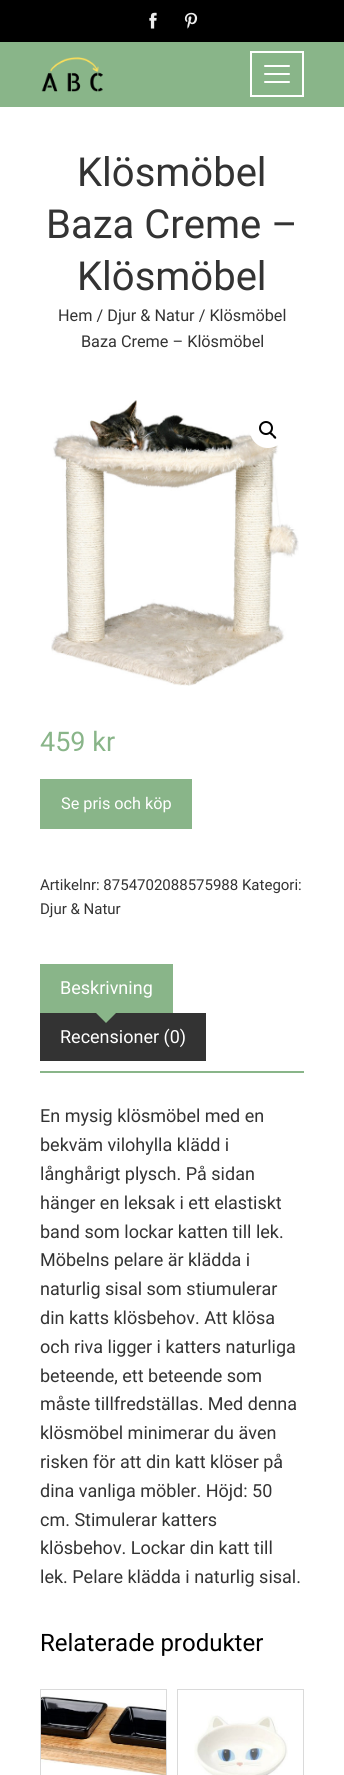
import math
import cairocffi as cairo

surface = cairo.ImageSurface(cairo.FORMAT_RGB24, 344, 1775)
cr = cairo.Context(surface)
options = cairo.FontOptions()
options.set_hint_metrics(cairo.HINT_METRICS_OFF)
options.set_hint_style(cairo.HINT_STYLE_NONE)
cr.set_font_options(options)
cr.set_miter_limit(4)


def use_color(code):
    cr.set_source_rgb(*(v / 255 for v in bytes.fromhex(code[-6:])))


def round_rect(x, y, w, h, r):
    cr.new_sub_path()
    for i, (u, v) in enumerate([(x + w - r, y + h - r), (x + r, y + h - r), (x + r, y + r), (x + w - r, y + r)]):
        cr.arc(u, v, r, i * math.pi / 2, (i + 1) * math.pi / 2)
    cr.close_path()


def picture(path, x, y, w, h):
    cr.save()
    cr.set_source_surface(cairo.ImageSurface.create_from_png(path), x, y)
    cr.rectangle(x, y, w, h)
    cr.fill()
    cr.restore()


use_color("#ffffff")
cr.paint()
use_color("#000000")
cr.rectangle(0, 0, 344, 42)
cr.fill()
picture("img1.png", 149, 12, 8, 17)
picture("img2.png", 184, 12, 14, 17)
use_color("#89b589")
cr.rectangle(0, 42, 344, 65)
cr.fill()
picture("img3.png", 41, 57, 62, 35)
cr.rectangle(251, 52, 52, 44)
use_color("#ffffff")
cr.stroke()
round_rect(264, 65, 26, 2, 1)
cr.fill()
round_rect(264, 73, 26, 2, 1)
cr.fill()
round_rect(264, 81, 26, 2, 1)
cr.fill()
cr.select_font_face("Roboto")
cr.set_font_size(40)
use_color("#333333")
cr.move_to(77, 186)
cr.show_text("Klösmöbel")
cr.move_to(46, 238)
cr.show_text("Baza Creme –")
cr.move_to(77, 290)
cr.show_text("Klösmöbel")
cr.set_font_size(16.25)
cr.move_to(58, 321)
cr.show_text("Hem / Djur & Natur / Klösmöbel")
cr.move_to(81, 347)
cr.show_text("Baza Creme – Klösmöbel")
picture("img4.png", 51, 400, 248, 286)
use_color("#ffffff")
cr.arc(268, 430, 18, 0, 2 * math.pi)
cr.fill()
cr.arc(266, 428, 6, 0, 2 * math.pi)
use_color("#000000")
cr.stroke()
cr.new_path()
cr.move_to(270, 432.5)
cr.curve_to(271.5, 431.5, 273, 434, 273.5, 434.5)
cr.curve_to(274.5, 435.5, 277, 437, 276, 438.5)
cr.curve_to(274.5, 439.5, 273, 437, 272.5, 436)
cr.curve_to(271.5, 435.5, 269, 434, 270, 432.5)
cr.close_path()
cr.fill()
cr.set_font_size(27)
use_color("#89b589")
cr.move_to(40, 751)
cr.show_text("459 kr")
cr.rectangle(40, 779, 152, 50)
cr.fill()
cr.set_font_size(16.25)
use_color("#ffffff")
cr.move_to(61, 809)
cr.show_text("Se pris och köp")
cr.set_font_size(15)
use_color("#333333")
cr.move_to(40, 890)
cr.show_text("Artikelnr: 8754702088575988 Kategori:")
cr.move_to(40, 914)
cr.show_text("Djur & Natur")
use_color("#89b589")
cr.rectangle(40, 1071, 264, 2)
cr.fill()
cr.rectangle(40, 964, 133, 49)
cr.fill()
cr.set_font_size(18)
use_color("#ffffff")
cr.move_to(60, 994)
cr.show_text("Beskrivning")
use_color("#333333")
cr.rectangle(40, 1013, 166, 48)
cr.fill()
use_color("#89b589")
cr.new_path()
cr.move_to(96, 1013)
cr.line_to(116, 1013)
cr.line_to(106, 1023)
cr.close_path()
cr.fill()
use_color("#ffffff")
cr.move_to(60, 1043)
cr.show_text("Recensioner (0)")
use_color("#333333")
cr.move_to(40, 1122)
cr.show_text("En mysig klösmöbel med en")
cr.move_to(40, 1151)
cr.show_text("bekväm vilohylla klädd i")
cr.move_to(40, 1180)
cr.show_text("långhårigt plysch. På sidan")
cr.move_to(40, 1209)
cr.show_text("hänger en leksak i ett elastiskt")
cr.move_to(40, 1238)
cr.show_text("band som lockar katten till lek.")
cr.move_to(40, 1266)
cr.show_text("Möbelns pelare är klädda i")
cr.move_to(40, 1295)
cr.show_text("naturlig sisal som stiumulerar")
cr.move_to(40, 1324)
cr.show_text("din katts klösbehov. Att klösa")
cr.move_to(40, 1353)
cr.show_text("och riva ligger i katters naturliga")
cr.move_to(40, 1382)
cr.show_text("beteende, ett beteende som")
cr.move_to(40, 1410)
cr.show_text("måste tillfredställas. Med denna")
cr.move_to(40, 1439)
cr.show_text("klösmöbel minimerar du även")
cr.move_to(40, 1468)
cr.show_text("risken för att din katt klöser på")
cr.move_to(40, 1497)
cr.show_text("dina vanliga möbler. Höjd: 50")
cr.move_to(40, 1526)
cr.show_text("cm. Stimulerar katters")
cr.move_to(40, 1554)
cr.show_text("klösbehov. Lockar din katt till")
cr.move_to(40, 1583)
cr.show_text("lek. Pelare klädda i naturlig sisal.")
cr.set_font_size(24)
use_color("#000000")
cr.move_to(40, 1651)
cr.show_text("Relaterade produkter")
cr.rectangle(40.5, 1689.5, 126, 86)
use_color("#dadada")
cr.set_line_width(1)
cr.stroke()
picture("img5.png", 41, 1696, 125, 79)
cr.rectangle(177.5, 1689.5, 126, 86)
cr.stroke()
picture("img6.png", 194, 1715, 94, 60)
surface.write_to_png("result.png")
